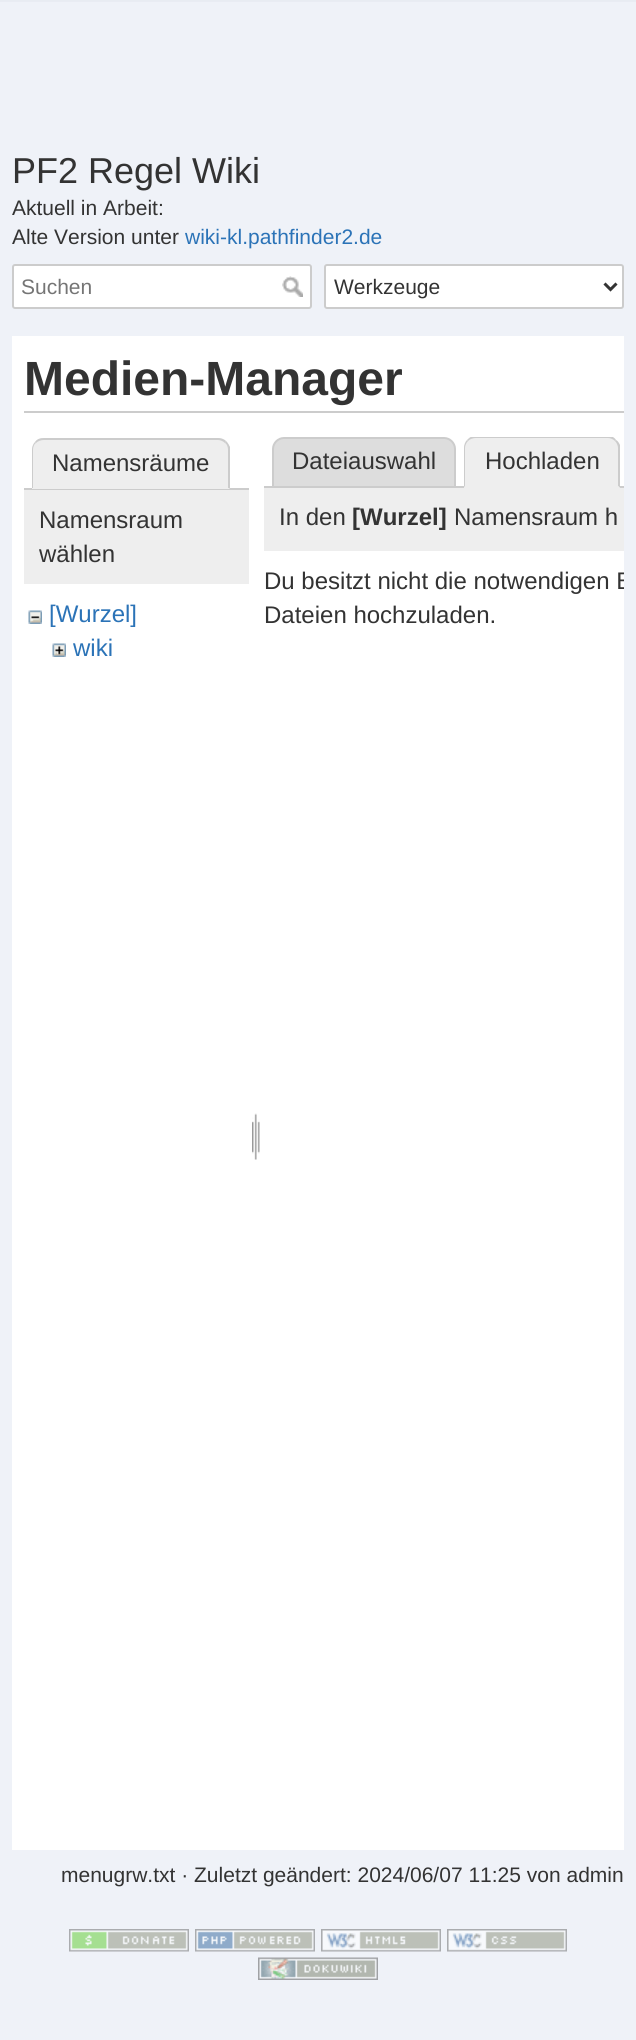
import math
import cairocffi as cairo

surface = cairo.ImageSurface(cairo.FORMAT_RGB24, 636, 2040)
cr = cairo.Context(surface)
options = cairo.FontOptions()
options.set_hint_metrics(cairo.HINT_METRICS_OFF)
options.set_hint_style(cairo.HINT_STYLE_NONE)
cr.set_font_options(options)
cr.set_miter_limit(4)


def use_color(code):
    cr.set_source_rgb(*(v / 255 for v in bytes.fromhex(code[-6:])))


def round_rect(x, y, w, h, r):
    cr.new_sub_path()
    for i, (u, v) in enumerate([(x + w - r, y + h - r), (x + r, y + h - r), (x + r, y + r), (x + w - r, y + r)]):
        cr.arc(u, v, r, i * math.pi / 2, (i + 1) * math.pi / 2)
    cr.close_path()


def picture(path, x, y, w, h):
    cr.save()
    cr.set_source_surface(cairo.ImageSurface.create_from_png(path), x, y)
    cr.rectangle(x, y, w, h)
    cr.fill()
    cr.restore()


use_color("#eff2f8")
cr.paint()
picture("img1.png", 0, 0, 636, 2)
cr.select_font_face("Liberation Sans")
cr.set_font_size(36)
use_color("#333333")
cr.move_to(12, 183)
cr.show_text("PF2 Regel Wiki")
cr.set_font_size(21)
cr.move_to(12, 215)
cr.show_text("Aktuell in Arbeit:")
cr.move_to(12, 244)
cr.show_text("Alte Version unter")
use_color("#2b73b7")
cr.move_to(185, 244)
cr.show_text("wiki-kl.pathfinder2.de")
use_color("#ffffff")
round_rect(13, 265, 298, 43, 2)
cr.fill_preserve()
use_color("#cccccc")
cr.stroke()
use_color("#757575")
cr.move_to(21, 294)
cr.show_text("Suchen")
picture("img2.png", 282, 276, 21, 21)
use_color("#ffffff")
round_rect(325, 265, 298, 43, 2)
cr.fill_preserve()
use_color("#cccccc")
cr.stroke()
cr.new_path()
cr.move_to(604.5, 283.5)
cr.line_to(610.5, 289.5)
cr.line_to(616.5, 283.5)
use_color("#333333")
cr.set_line_width(3)
cr.stroke()
cr.move_to(334, 294)
cr.show_text("Werkzeuge")
use_color("#ffffff")
cr.rectangle(12, 336, 612, 1514)
cr.fill()
use_color("#cccccc")
cr.rectangle(24, 411, 600, 2)
cr.fill()
cr.select_font_face("Liberation Sans", cairo.FONT_SLANT_NORMAL, cairo.FONT_WEIGHT_BOLD)
cr.set_font_size(48)
use_color("#333333")
cr.move_to(24, 395)
cr.show_text("Medien-Manager")
use_color("#cccccc")
cr.rectangle(24, 488, 225, 2)
cr.fill()
use_color("#eeeeee")
cr.new_path()
cr.move_to(44, 438)
cr.line_to(218, 438)
cr.curve_to(224.5, 438, 230, 443.5, 230, 450)
cr.line_to(230, 489)
cr.line_to(32, 489)
cr.line_to(32, 450)
cr.curve_to(32, 443.5, 37.5, 438, 44, 438)
cr.close_path()
cr.fill()
use_color("#cccccc")
cr.new_path()
cr.move_to(44, 438)
cr.curve_to(40, 438, 37, 439, 35, 442)
cr.line_to(36, 443)
cr.curve_to(38, 441, 41, 440, 44, 440)
cr.line_to(218, 440)
cr.curve_to(220, 440, 223, 441, 225, 443)
cr.line_to(226, 441)
cr.curve_to(224, 439, 221, 438, 218, 438)
cr.close_path()
cr.fill()
cr.new_path()
cr.move_to(230, 447)
cr.line_to(230, 489)
cr.line_to(228, 488)
cr.line_to(228, 450)
cr.curve_to(228, 447, 227, 444, 225, 443)
cr.line_to(226, 441)
cr.curve_to(228, 443, 229, 445, 230, 447)
cr.close_path()
cr.fill()
use_color("#eeeeee")
cr.new_path()
cr.move_to(230, 489)
cr.line_to(228, 488)
cr.line_to(33, 488)
cr.line_to(32, 489)
cr.close_path()
cr.fill()
use_color("#cccccc")
cr.new_path()
cr.move_to(35, 442)
cr.curve_to(33, 444, 32, 447, 32, 450)
cr.line_to(32, 488)
cr.line_to(33, 488)
cr.line_to(33, 450)
cr.curve_to(33, 447, 34, 444, 36, 443)
cr.close_path()
cr.fill()
cr.select_font_face("Liberation Sans")
cr.set_font_size(24)
use_color("#333333")
cr.move_to(52, 471)
cr.show_text("Namensräume")
use_color("#eeeeee")
cr.rectangle(24, 490, 225, 94)
cr.fill()
use_color("#333333")
cr.move_to(39, 528)
cr.show_text("Namensraum")
cr.move_to(39, 562)
cr.show_text("wählen")
picture("img3.png", 28, 610, 14, 14)
use_color("#2b73b7")
cr.move_to(49, 622)
cr.show_text("[Wurzel]")
picture("img4.png", 52, 643, 14, 14)
cr.move_to(73, 656)
cr.show_text("wiki")
picture("img5.png", 252, 1113, 8, 47)
use_color("#dddddd")
cr.new_path()
cr.move_to(284, 438)
cr.line_to(444, 438)
cr.curve_to(450, 438, 455, 443, 455, 449)
cr.line_to(455, 487)
cr.line_to(273, 487)
cr.line_to(273, 449)
cr.curve_to(273, 443, 278, 438, 284, 438)
cr.close_path()
cr.fill_preserve()
use_color("#cccccc")
cr.set_line_width(2)
cr.stroke()
use_color("#333333")
cr.move_to(292, 469)
cr.show_text("Dateiauswahl")
use_color("#cccccc")
cr.rectangle(264, 486, 360, 2)
cr.fill()
use_color("#eeeeee")
cr.new_path()
cr.move_to(476, 437)
cr.line_to(608, 437)
cr.curve_to(614.5, 437, 620, 442.5, 620, 449)
cr.line_to(620, 488)
cr.line_to(464, 488)
cr.line_to(464, 449)
cr.curve_to(464, 442.5, 469.5, 437, 476, 437)
cr.close_path()
cr.fill()
cr.save()
cr.rectangle(264, 437, 360, 51)
cr.clip()
use_color("#cccccc")
cr.new_path()
cr.move_to(476, 438)
cr.curve_to(473, 438, 470, 439, 468, 441)
cr.line_to(467, 440)
cr.curve_to(469, 438, 470, 437, 473, 436)
cr.line_to(611, 436)
cr.curve_to(613, 437, 615, 438, 616, 440)
cr.line_to(615, 441)
cr.curve_to(613, 439, 610, 438, 608, 438)
cr.close_path()
cr.fill()
cr.restore()
use_color("#cccccc")
cr.new_path()
cr.move_to(616, 440)
cr.curve_to(618, 441, 619, 443, 620, 445)
cr.line_to(620, 488)
cr.line_to(618, 486)
cr.line_to(618, 448)
cr.curve_to(618, 446, 617, 443, 615, 441)
cr.close_path()
cr.fill()
use_color("#eeeeee")
cr.new_path()
cr.move_to(620, 488)
cr.line_to(464, 488)
cr.line_to(465, 486)
cr.line_to(618, 486)
cr.close_path()
cr.fill()
use_color("#cccccc")
cr.new_path()
cr.move_to(464, 487)
cr.line_to(464, 448)
cr.curve_to(464, 445, 465, 442, 467, 440)
cr.line_to(468, 441)
cr.curve_to(466, 443, 465, 446, 465, 448)
cr.line_to(465, 486)
cr.close_path()
cr.fill()
use_color("#333333")
cr.move_to(485, 469)
cr.show_text("Hochladen")
use_color("#eeeeee")
cr.rectangle(264, 488, 360, 63)
cr.fill()
use_color("#333333")
cr.move_to(279, 525)
cr.show_text("In den")
cr.select_font_face("Liberation Sans", cairo.FONT_SLANT_NORMAL, cairo.FONT_WEIGHT_BOLD)
cr.move_to(352, 525)
cr.show_text("[Wurzel]")
cr.select_font_face("Liberation Sans")
cr.move_to(454, 525)
cr.show_text("Namensraum h")
cr.save()
cr.rectangle(264, 566, 360, 1224)
cr.clip()
cr.move_to(264, 589)
cr.show_text("Du besitzt nicht die notwendigen B")
cr.restore()
cr.move_to(264, 623)
cr.show_text("Dateien hochzuladen.")
cr.set_font_size(21)
cr.move_to(61, 1882)
cr.show_text("menugrw.txt · Zuletzt geändert: 2024/06/07 11:25 von admin")
picture("img6.png", 69, 1929, 120, 23)
picture("img7.png", 195, 1929, 120, 23)
picture("img8.png", 321, 1929, 120, 23)
picture("img9.png", 447, 1929, 120, 23)
picture("img10.png", 258, 1957, 120, 23)
surface.write_to_png("result.png")
